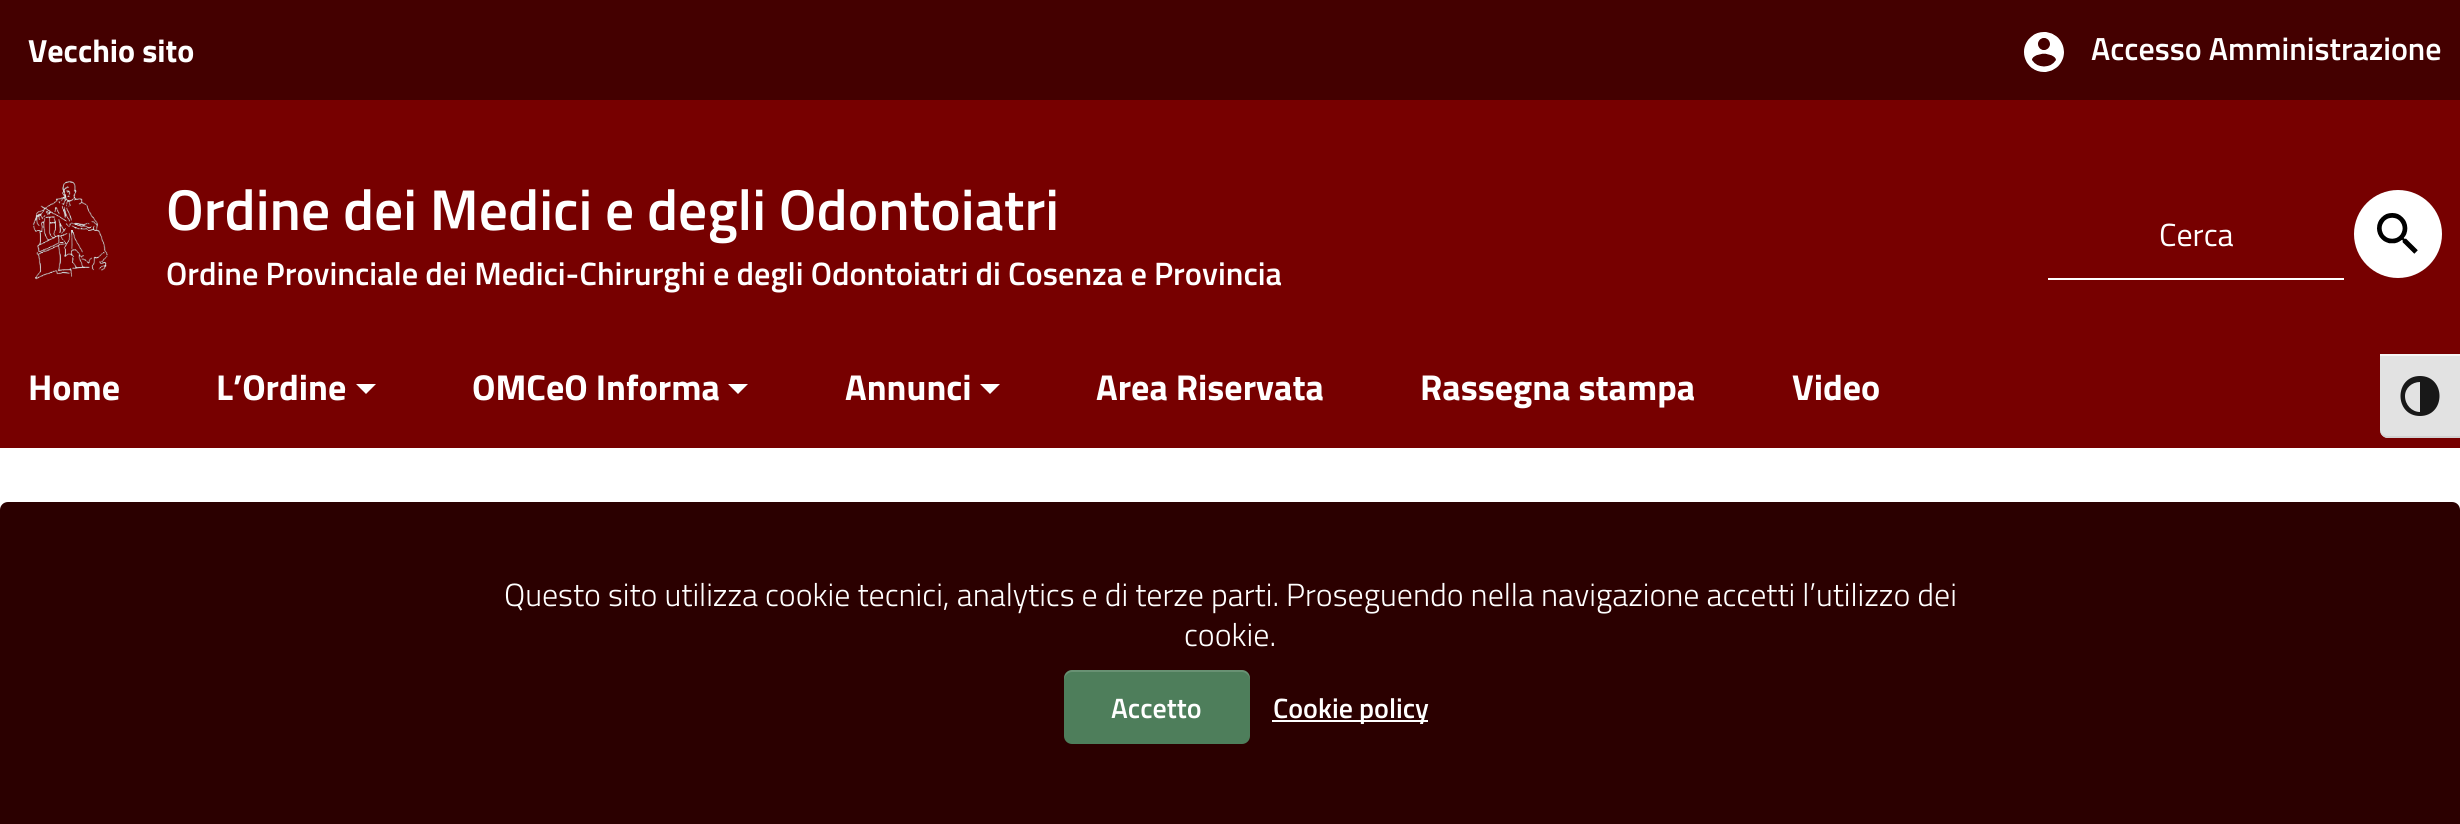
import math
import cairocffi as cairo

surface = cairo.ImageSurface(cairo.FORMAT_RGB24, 2460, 824)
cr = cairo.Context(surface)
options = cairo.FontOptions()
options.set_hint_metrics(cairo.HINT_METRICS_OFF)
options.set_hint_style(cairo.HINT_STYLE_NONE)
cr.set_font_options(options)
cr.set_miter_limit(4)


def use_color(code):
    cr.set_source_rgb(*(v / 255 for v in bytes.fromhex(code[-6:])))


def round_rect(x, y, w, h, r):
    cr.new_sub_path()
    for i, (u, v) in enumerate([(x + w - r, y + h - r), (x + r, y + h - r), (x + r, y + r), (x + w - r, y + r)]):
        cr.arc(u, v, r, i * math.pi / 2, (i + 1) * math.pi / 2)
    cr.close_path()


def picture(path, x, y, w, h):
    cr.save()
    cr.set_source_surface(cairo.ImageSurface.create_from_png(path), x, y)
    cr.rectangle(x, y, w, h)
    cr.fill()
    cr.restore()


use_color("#ffffff")
cr.paint()
use_color("#770000")
cr.rectangle(0, 100, 2460, 348)
cr.fill()
use_color("#440000")
cr.rectangle(0, 0, 2460, 100)
cr.fill()
cr.select_font_face("Titillium Web", cairo.FONT_SLANT_NORMAL, cairo.FONT_WEIGHT_BOLD)
cr.set_font_size(32)
use_color("#ffffff")
cr.move_to(28, 62)
cr.show_text("Vecchio sito")
picture("img1.png", 2024, 32, 40, 40)
cr.select_font_face("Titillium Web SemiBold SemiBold")
cr.move_to(2091, 60)
cr.show_text("Accesso Amministrazione")
picture("img2.png", 32, 180, 76, 100)
cr.set_font_size(57.6)
cr.move_to(166, 230)
cr.show_text("Ordine dei Medici e degli Odontoiatri")
cr.set_font_size(32.4)
cr.move_to(166, 285)
cr.show_text("Ordine Provinciale dei Medici-Chirurghi e degli Odontoiatri di Cosenza e Provincia")
cr.rectangle(2048, 278, 296, 2)
cr.fill()
cr.select_font_face("Titillium Web")
cr.set_font_size(32)
cr.move_to(2159, 246)
cr.show_text("Cerca")
cr.new_path()
cr.arc(2398, 234, 44, 0, 2 * math.pi)
cr.fill()
picture("img3.png", 2377, 213, 41, 41)
cr.select_font_face("Titillium Web", cairo.FONT_SLANT_NORMAL, cairo.FONT_WEIGHT_BOLD)
cr.set_font_size(36)
cr.move_to(28, 400)
cr.show_text("Home")
cr.move_to(216, 400)
cr.show_text("L’Ordine")
cr.new_path()
cr.move_to(356, 384)
cr.line_to(376, 384)
cr.line_to(366, 394)
cr.close_path()
cr.fill()
cr.move_to(472, 400)
cr.show_text("OMCeO Informa")
cr.new_path()
cr.move_to(728, 384)
cr.line_to(748, 384)
cr.line_to(738, 394)
cr.close_path()
cr.fill()
cr.move_to(845, 400)
cr.show_text("Annunci")
cr.new_path()
cr.move_to(980, 384)
cr.line_to(1000, 384)
cr.line_to(990, 394)
cr.close_path()
cr.fill()
cr.move_to(1096, 400)
cr.show_text("Area Riservata")
cr.move_to(1420, 400)
cr.show_text("Rassegna stampa")
cr.move_to(1792, 400)
cr.show_text("Video")
use_color("#e2e2e2")
cr.new_path()
cr.move_to(2380, 354)
cr.line_to(2460, 354)
cr.line_to(2460, 438)
cr.line_to(2388, 438)
cr.curve_to(2383.5, 438, 2380, 434.5, 2380, 430)
cr.close_path()
cr.fill()
use_color("#f5f5f5")
cr.rectangle(2380, 354, 80, 2)
cr.fill()
use_color("#d2d2d2")
cr.new_path()
cr.move_to(2460, 438)
cr.line_to(2460, 436)
cr.line_to(2388, 436)
cr.curve_to(2384, 436, 2380, 433, 2380, 430)
cr.curve_to(2380, 434, 2384, 438, 2388, 438)
cr.close_path()
cr.fill()
use_color("#181818")
cr.new_path()
cr.move_to(2420, 376)
cr.curve_to(2394, 376, 2394, 416, 2420, 416)
cr.curve_to(2446, 416, 2446, 376, 2420, 376)
cr.close_path()
cr.move_to(2405, 396)
cr.curve_to(2405, 388, 2412, 382, 2420, 382)
cr.line_to(2420, 412)
cr.curve_to(2412, 412, 2405, 405, 2405, 396)
cr.close_path()
cr.fill()
use_color("#2b0000")
cr.new_path()
cr.move_to(8, 502)
cr.line_to(2452, 502)
cr.curve_to(2456.5, 502, 2460, 505.5, 2460, 510)
cr.line_to(2460, 824)
cr.line_to(0, 824)
cr.line_to(0, 510)
cr.curve_to(0, 505.5, 3.5, 502, 8, 502)
cr.close_path()
cr.fill()
cr.select_font_face("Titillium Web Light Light")
cr.set_font_size(32)
use_color("#ffffff")
cr.move_to(504, 606)
cr.show_text("Questo sito utilizza cookie tecnici, analytics e di terze parti. Proseguendo nella navigazione accetti l’utilizzo dei")
cr.move_to(1184, 646)
cr.show_text("cookie.")
use_color("#4e7e5b")
round_rect(1064, 670, 186, 74, 8)
cr.fill()
cr.set_source_rgba(1, 1, 1, 0.15)
cr.new_path()
cr.move_to(1072, 672)
cr.line_to(1242, 672)
cr.curve_to(1246, 672, 1250, 676, 1250, 680)
cr.line_to(1250, 678)
cr.curve_to(1250, 674, 1246, 670, 1242, 670)
cr.line_to(1072, 670)
cr.curve_to(1068, 670, 1064, 674, 1064, 678)
cr.line_to(1064, 680)
cr.curve_to(1064, 676, 1068, 672, 1072, 672)
cr.close_path()
cr.fill()
cr.select_font_face("Titillium Web SemiBold SemiBold")
cr.set_font_size(28)
use_color("#ffffff")
cr.move_to(1111, 718)
cr.show_text("Accetto")
cr.rectangle(1272, 720, 156, 2)
cr.fill()
cr.move_to(1273, 718)
cr.show_text("Cookie policy")
surface.write_to_png("result.png")
